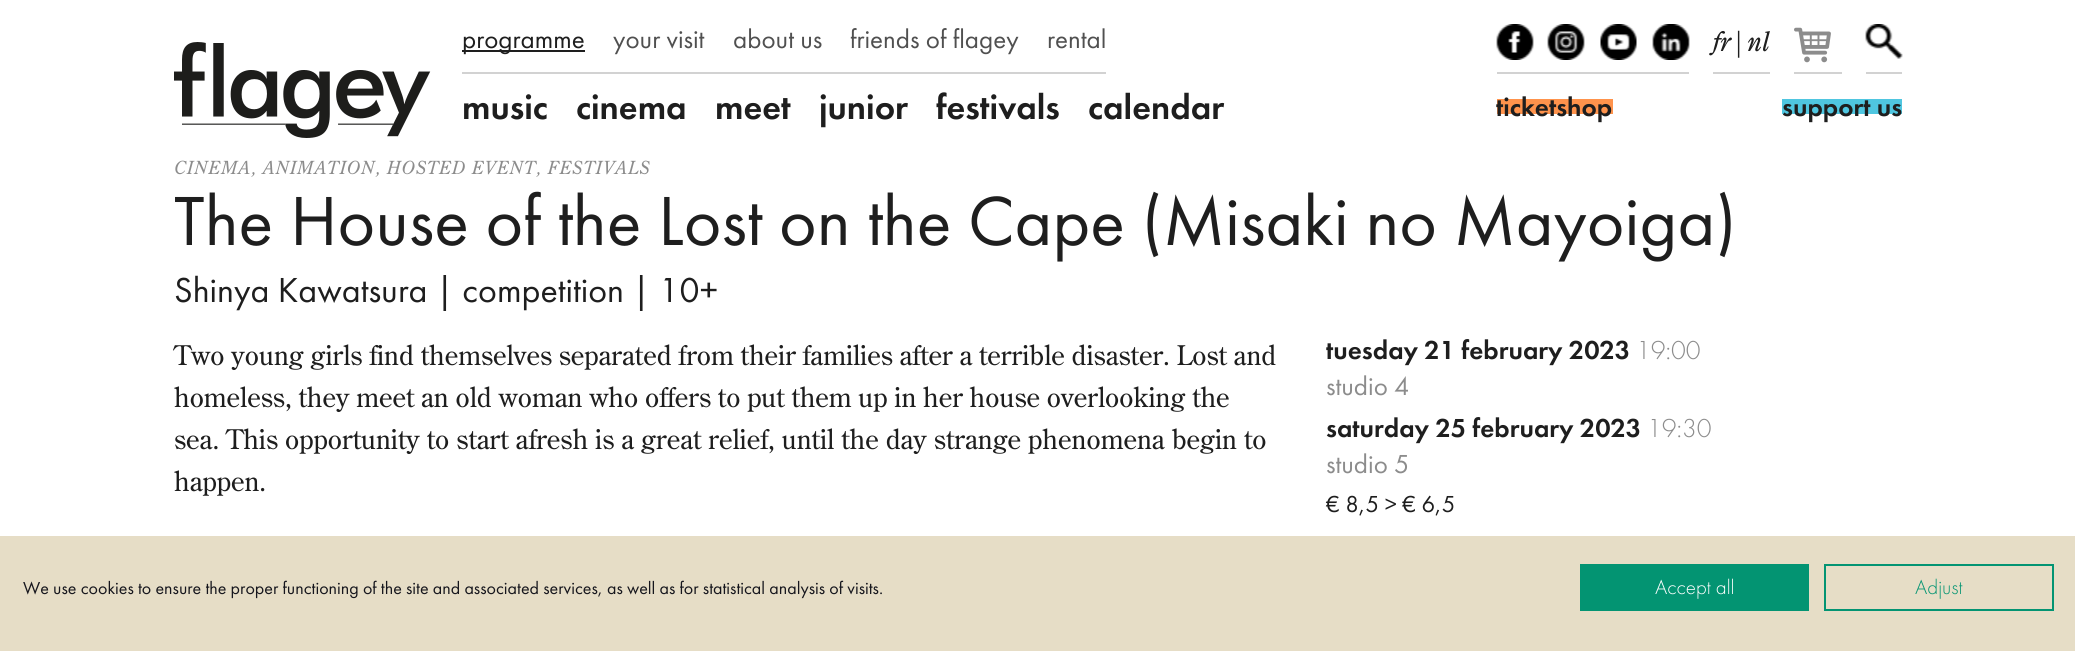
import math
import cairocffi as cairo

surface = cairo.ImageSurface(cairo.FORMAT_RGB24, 2075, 651)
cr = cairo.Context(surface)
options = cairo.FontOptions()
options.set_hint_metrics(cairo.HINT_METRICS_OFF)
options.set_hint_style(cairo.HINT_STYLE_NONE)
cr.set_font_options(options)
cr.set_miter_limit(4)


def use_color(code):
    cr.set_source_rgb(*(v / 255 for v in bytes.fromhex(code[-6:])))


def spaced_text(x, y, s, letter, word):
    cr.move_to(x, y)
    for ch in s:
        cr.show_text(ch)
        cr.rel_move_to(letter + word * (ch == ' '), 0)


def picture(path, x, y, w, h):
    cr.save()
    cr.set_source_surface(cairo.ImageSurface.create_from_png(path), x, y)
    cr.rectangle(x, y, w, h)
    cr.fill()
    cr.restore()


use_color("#ffffff")
cr.paint()
picture("img1.png", 174, 42, 257, 96)
use_color("#d2d2d2")
cr.rectangle(462, 72, 644, 2)
cr.fill()
use_color("#1e1e1e")
cr.rectangle(462, 50, 123, 2)
cr.fill()
cr.select_font_face("Futura PT")
cr.set_font_size(27)
cr.move_to(462, 48)
cr.show_text("programme")
use_color("#505050")
cr.move_to(613, 48)
cr.show_text("your visit")
cr.move_to(733, 48)
cr.show_text("about us")
cr.move_to(850, 48)
cr.show_text("friends of flagey")
cr.move_to(1047, 48)
cr.show_text("rental")
cr.select_font_face("Futura PT Medium")
cr.set_font_size(36)
use_color("#1e1e1e")
cr.move_to(462, 119)
cr.show_text("music")
cr.move_to(576, 119)
cr.show_text("cinema")
cr.move_to(715, 119)
cr.show_text("meet")
cr.move_to(819, 119)
cr.show_text("junior")
cr.move_to(936, 119)
cr.show_text("festivals")
cr.move_to(1088, 119)
cr.show_text("calendar")
use_color("#d2d2d2")
cr.rectangle(1497, 72, 192, 2)
cr.fill()
picture("img2.png", 1496, 24, 38, 36)
picture("img3.png", 1547, 24, 38, 36)
picture("img4.png", 1600, 24, 37, 36)
picture("img5.png", 1652, 24, 38, 36)
cr.rectangle(1713, 72, 57, 2)
cr.fill()
cr.select_font_face("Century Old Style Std", cairo.FONT_SLANT_ITALIC)
cr.set_font_size(27)
use_color("#1e1e1e")
cr.move_to(1713, 51)
cr.show_text("fr")
cr.move_to(1735, 51)
cr.show_text("|")
cr.move_to(1747, 51)
cr.show_text("nl")
use_color("#d2d2d2")
cr.rectangle(1794, 72, 48, 2)
cr.fill()
picture("img6.png", 1794, 27, 37, 36)
cr.rectangle(1866, 72, 36, 2)
cr.fill()
picture("img7.png", 1865, 24, 38, 35)
use_color("#ff934c")
cr.rectangle(1497, 99, 116, 15)
cr.fill()
cr.select_font_face("Futura PT Medium")
use_color("#1e1e1e")
cr.move_to(1496, 116)
cr.show_text("ticketshop")
use_color("#4fc6e0")
cr.rectangle(1782, 99, 120, 15)
cr.fill()
use_color("#1e1e1e")
cr.move_to(1782, 116)
cr.show_text("support us")
cr.select_font_face("Century Old Style Std", cairo.FONT_SLANT_ITALIC)
cr.set_font_size(18)
use_color("#8c8c8c")
spaced_text(174, 174, "CINEMA, ANIMATION, HOSTED EVENT, FESTIVALS", 0.9, 0)
cr.select_font_face("Futura PT")
cr.set_font_size(72)
use_color("#1e1e1e")
cr.move_to(174, 245)
cr.show_text("The House of the Lost on the Cape (Misaki no Mayoiga)")
cr.set_font_size(36)
cr.move_to(174, 302)
cr.show_text("Shinya Kawatsura | competition | 10+")
cr.select_font_face("Century Old Style Std")
cr.set_font_size(27)
cr.move_to(174, 365)
cr.show_text("Two young girls find themselves separated from their families after a terrible disaster. Lost and")
cr.move_to(174, 407)
cr.show_text("homeless, they meet an old woman who offers to put them up in her house overlooking the")
spaced_text(174, 449, "sea. This opportunity to start afresh is a great relief, until the day strange phenomena begin to", 0, 0.25)
cr.move_to(174, 491)
cr.show_text("happen.")
cr.select_font_face("Futura PT Medium")
cr.move_to(1326, 359)
cr.show_text("tuesday 21 february 2023")
cr.select_font_face("Futura PT Light")
use_color("#8c8c8c")
cr.move_to(1636, 359)
cr.show_text("19:00")
cr.select_font_face("Futura PT")
cr.move_to(1326, 395)
cr.show_text("studio 4")
cr.select_font_face("Futura PT Medium")
use_color("#1e1e1e")
cr.move_to(1326, 437)
cr.show_text("saturday 25 february 2023")
cr.select_font_face("Futura PT Light")
use_color("#8c8c8c")
cr.move_to(1647, 437)
cr.show_text("19:30")
cr.select_font_face("Futura PT")
cr.move_to(1326, 473)
cr.show_text("studio 5")
cr.set_font_size(24)
use_color("#1e1e1e")
cr.move_to(1326, 512)
cr.show_text("€ 8,5 > € 6,5")
use_color("#e6ddc6")
cr.rectangle(0, 536, 2075, 115)
cr.fill()
cr.set_font_size(18)
use_color("#16161d")
cr.move_to(23, 594)
cr.show_text("We use cookies to ensure the proper functioning of the site and associated services, as well as for statistical analysis of visits.")
use_color("#039472")
cr.rectangle(1580, 564, 229, 47)
cr.fill()
cr.select_font_face("Futura PT Light")
cr.set_font_size(21)
use_color("#ffffff")
cr.move_to(1655, 594)
cr.show_text("Accept all")
cr.rectangle(1825, 565, 228, 45)
use_color("#039472")
cr.stroke()
cr.move_to(1915, 594)
cr.show_text("Adjust")
surface.write_to_png("result.png")
